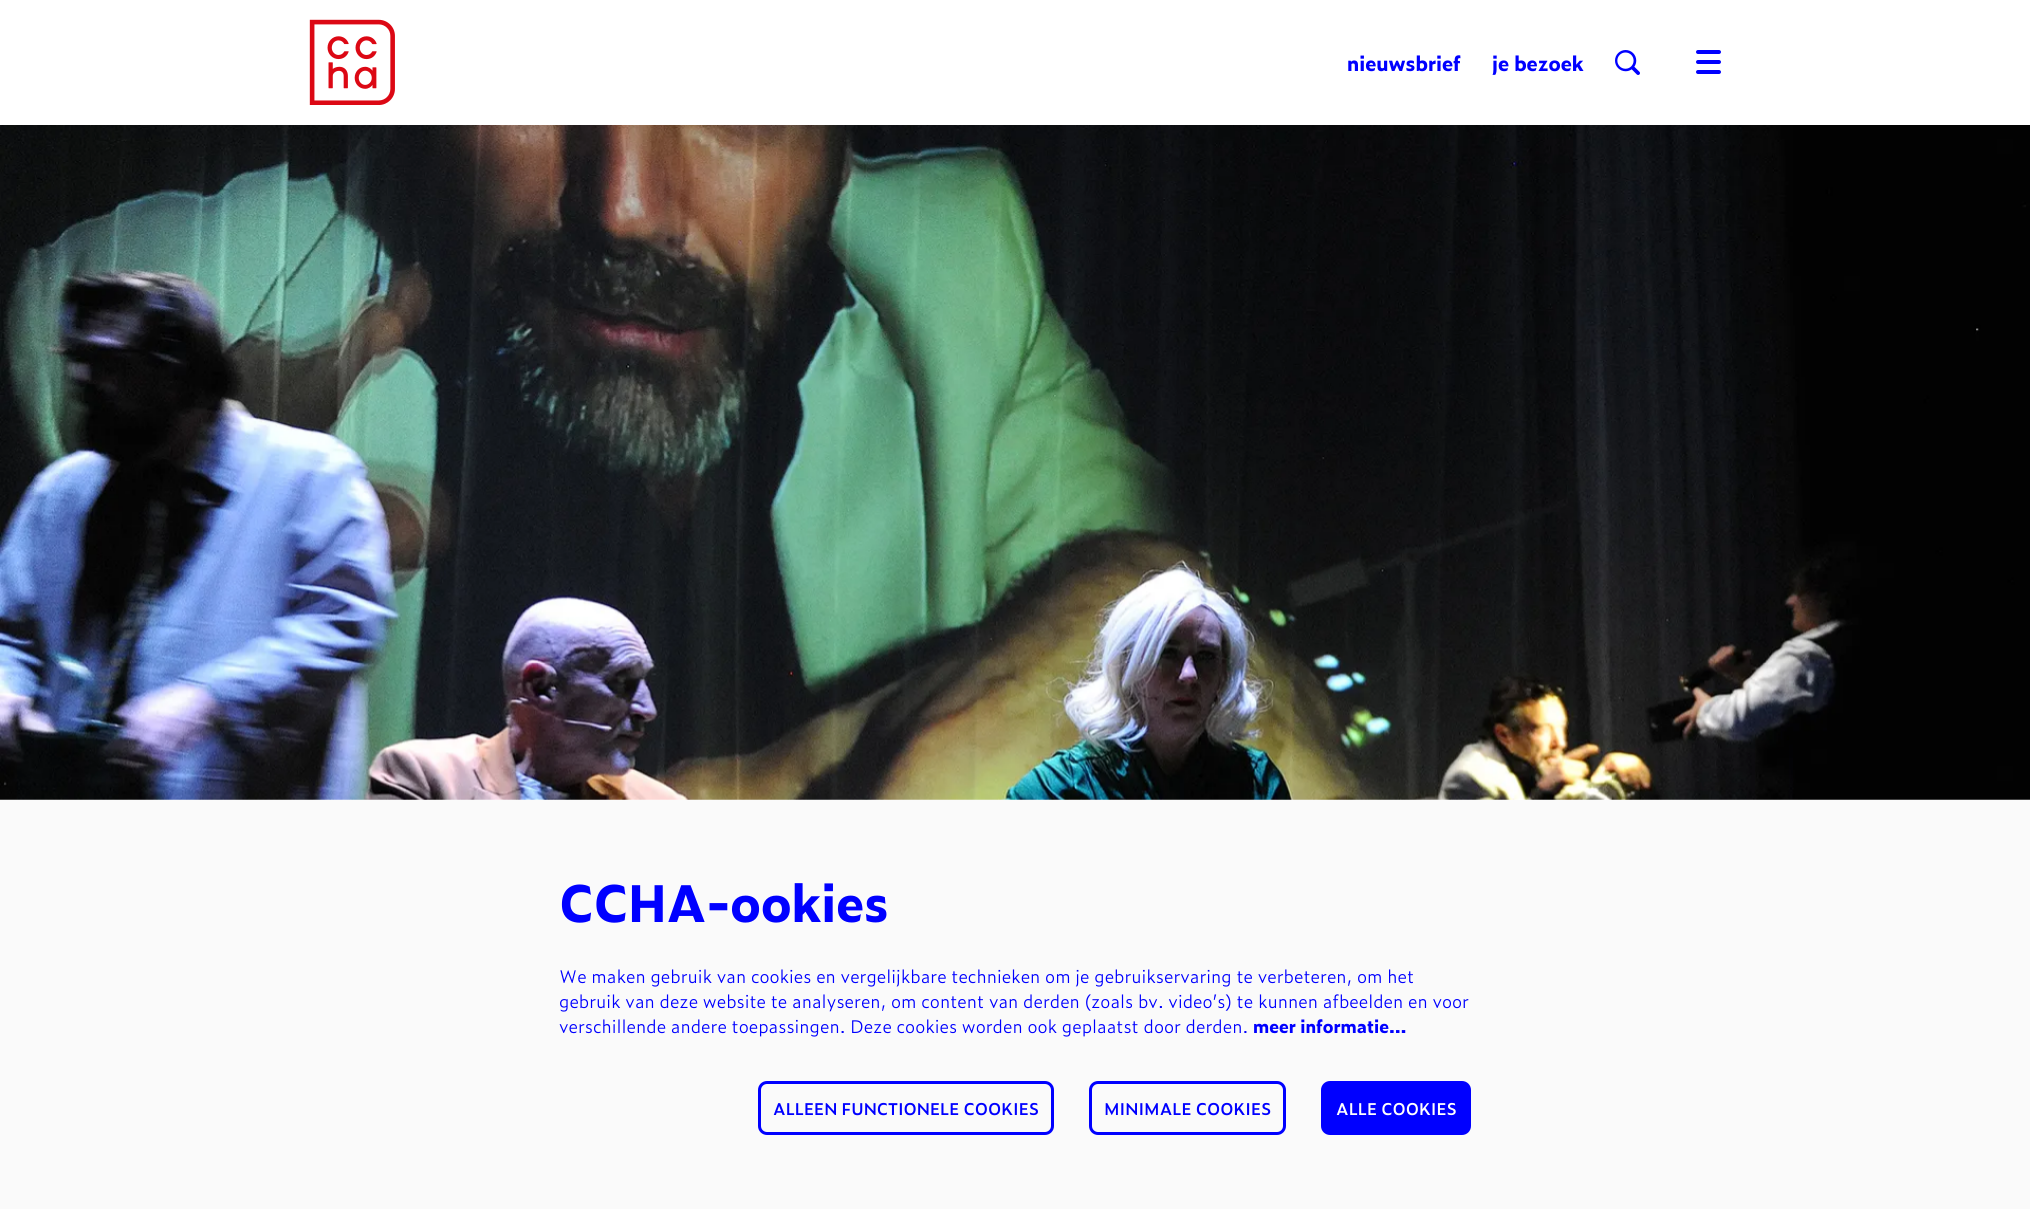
import math
import cairocffi as cairo

surface = cairo.ImageSurface(cairo.FORMAT_RGB24, 2030, 1209)
cr = cairo.Context(surface)
options = cairo.FontOptions()
options.set_hint_metrics(cairo.HINT_METRICS_OFF)
options.set_hint_style(cairo.HINT_STYLE_NONE)
cr.set_font_options(options)
cr.set_miter_limit(4)


def use_color(code):
    cr.set_source_rgb(*(v / 255 for v in bytes.fromhex(code[-6:])))


def round_rect(x, y, w, h, r):
    cr.new_sub_path()
    for i, (u, v) in enumerate([(x + w - r, y + h - r), (x + r, y + h - r), (x + r, y + r), (x + w - r, y + r)]):
        cr.arc(u, v, r, i * math.pi / 2, (i + 1) * math.pi / 2)
    cr.close_path()


def picture(path, x, y, w, h):
    cr.save()
    cr.set_source_surface(cairo.ImageSurface.create_from_png(path), x, y)
    cr.rectangle(x, y, w, h)
    cr.fill()
    cr.restore()


use_color("#ffffff")
cr.paint()
picture("img1.png", 309, 19, 86, 86)
cr.select_font_face("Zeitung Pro", cairo.FONT_SLANT_NORMAL, cairo.FONT_WEIGHT_BOLD)
cr.set_font_size(20)
use_color("#0000ff")
cr.move_to(1347, 71)
cr.show_text("nieuwsbrief")
cr.move_to(1492, 71)
cr.show_text("je bezoek")
picture("img2.png", 1615, 50, 25, 25)
round_rect(1696, 50, 25, 4, 2)
cr.fill()
round_rect(1696, 60, 25, 4, 2)
cr.fill()
round_rect(1696, 70, 25, 4, 2)
cr.fill()
picture("img3.png", 0, 125, 2030, 675)
use_color("#fafafa")
cr.rectangle(0, 800, 2030, 409)
cr.fill()
cr.set_font_size(50)
use_color("#0000ff")
cr.move_to(559, 922)
cr.show_text("CCHA-ookies")
cr.select_font_face("Zeitung Pro Light")
cr.set_font_size(17.5)
cr.move_to(559, 983)
cr.show_text("We maken gebruik van cookies en vergelijkbare technieken om je gebruikservaring te verbeteren, om het")
cr.move_to(559, 1008)
cr.show_text("gebruik van deze website te analyseren, om content van derden (zoals bv. video’s) te kunnen afbeelden en voor")
cr.move_to(559, 1033)
cr.show_text("verschillende andere toepassingen. Deze cookies worden ook geplaatst door derden.")
cr.select_font_face("Zeitung Pro", cairo.FONT_SLANT_NORMAL, cairo.FONT_WEIGHT_BOLD)
cr.move_to(1253, 1033)
cr.show_text("meer informatie…")
round_rect(759.5, 1082.5, 293, 51, 7.5)
cr.set_line_width(3)
cr.stroke()
cr.select_font_face("Zeitung Pro SemiBold")
cr.set_font_size(16.25)
cr.move_to(773, 1115)
cr.show_text("ALLEEN FUNCTIONELE COOKIES")
round_rect(1090.5, 1082.5, 194, 51, 7.5)
cr.stroke()
cr.move_to(1104, 1115)
cr.show_text("MINIMALE COOKIES")
round_rect(1322.5, 1082.5, 147, 51, 7.5)
cr.fill_preserve()
cr.stroke()
use_color("#ffffff")
cr.move_to(1336, 1115)
cr.show_text("ALLE COOKIES")
surface.write_to_png("result.png")
